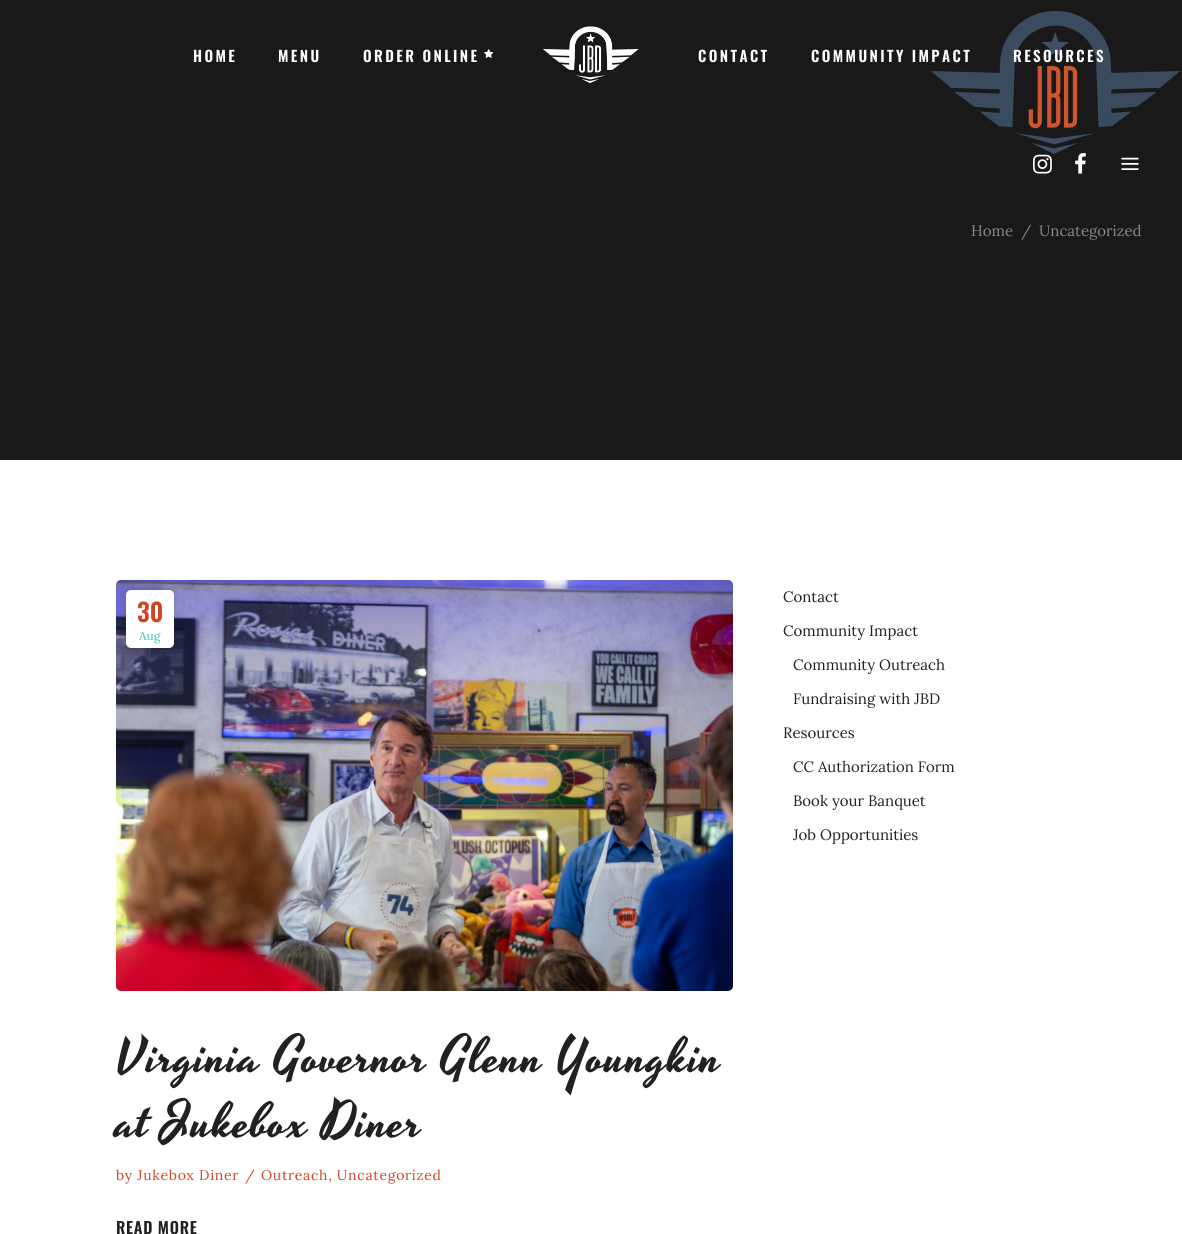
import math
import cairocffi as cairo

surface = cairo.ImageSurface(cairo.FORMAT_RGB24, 1182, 1234)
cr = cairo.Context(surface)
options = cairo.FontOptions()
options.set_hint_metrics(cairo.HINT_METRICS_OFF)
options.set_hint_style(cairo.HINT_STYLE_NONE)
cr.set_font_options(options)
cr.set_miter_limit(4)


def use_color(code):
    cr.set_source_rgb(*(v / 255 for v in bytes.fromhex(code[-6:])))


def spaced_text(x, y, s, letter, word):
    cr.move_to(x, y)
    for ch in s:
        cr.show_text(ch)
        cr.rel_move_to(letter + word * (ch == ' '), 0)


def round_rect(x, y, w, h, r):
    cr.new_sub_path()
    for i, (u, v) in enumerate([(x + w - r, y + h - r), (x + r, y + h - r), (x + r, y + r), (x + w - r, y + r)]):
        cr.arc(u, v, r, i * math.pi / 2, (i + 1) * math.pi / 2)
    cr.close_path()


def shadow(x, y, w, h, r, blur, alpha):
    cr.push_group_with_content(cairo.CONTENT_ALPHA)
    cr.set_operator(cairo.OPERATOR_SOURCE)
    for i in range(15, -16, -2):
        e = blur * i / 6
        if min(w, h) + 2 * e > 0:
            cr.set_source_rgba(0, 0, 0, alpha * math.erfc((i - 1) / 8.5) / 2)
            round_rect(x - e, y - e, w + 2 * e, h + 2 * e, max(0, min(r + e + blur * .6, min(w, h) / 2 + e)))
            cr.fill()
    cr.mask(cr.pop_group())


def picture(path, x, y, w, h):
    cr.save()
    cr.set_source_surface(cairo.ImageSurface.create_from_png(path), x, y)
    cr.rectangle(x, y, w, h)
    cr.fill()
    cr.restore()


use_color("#ffffff")
cr.paint()
use_color("#191919")
cr.rectangle(0, 0, 1182, 460)
cr.fill()
cr.select_font_face("Oswald SemiBold")
cr.set_font_size(15)
use_color("#ffffff")
spaced_text(193, 62, "HOME", 2.4, 0)
spaced_text(278, 62, "MENU", 2.4, 0)
spaced_text(363, 62, "ORDER ONLINE", 2.4, 0)
picture("img1.png", 484, 49, 10, 9)
picture("img2.png", 543, 26, 96, 57)
spaced_text(698, 62, "CONTACT", 2.4, 0)
picture("img6.png", 931, 11, 249, 143)
spaced_text(811, 62, "COMMUNITY IMPACT", 2.4, 0)
spaced_text(1013, 62, "RESOURCES", 2.4, 0)
picture("img3.png", 1033, 154, 19, 20)
picture("img4.png", 1075, 153, 11, 21)
picture("img5.png", 1121, 157, 18, 13)
cr.select_font_face("Lora")
use_color("#888888")
cr.move_to(971, 236)
cr.show_text("Home")
cr.move_to(1021, 236)
cr.show_text("/")
cr.move_to(1039, 236)
cr.show_text("Uncategorized")
picture("img7.png", 116, 580, 617, 411)
use_color("#000000")
shadow(126, 590, 48, 58, 5, 5, 0.2)
use_color("#ffffff")
round_rect(126, 590, 48, 58, 5)
cr.fill()
cr.select_font_face("Oswald SemiBold")
cr.set_font_size(25)
use_color("#cf4520")
cr.move_to(137, 622)
cr.show_text("30")
cr.select_font_face("Lora")
cr.set_font_size(12)
use_color("#34c2c2")
cr.move_to(139, 640)
cr.show_text("Aug")
cr.select_font_face("Yesteryear")
cr.set_font_size(50)
use_color("#212121")
spaced_text(116, 1071, "Virginia Governor Glenn Youngkin", 1, 0)
spaced_text(116, 1136, "at Jukebox Diner", 1, 0)
cr.select_font_face("Lora")
cr.set_font_size(14)
use_color("#cf4520")
spaced_text(116, 1180, "by Jukebox Diner", 0.7, 0)
spaced_text(245, 1180, "/", 0.7, 0)
spaced_text(261, 1180, "Outreach, Uncategorized", 0.7, 0)
cr.select_font_face("Oswald SemiBold")
cr.set_font_size(16)
use_color("#212121")
spaced_text(116, 1234, "READ MORE", 0.75, 0)
cr.select_font_face("Lora")
cr.set_font_size(15)
cr.move_to(783, 602)
cr.show_text("Contact")
cr.move_to(783, 636)
cr.show_text("Community Impact")
cr.move_to(793, 670)
cr.show_text("Community Outreach")
cr.move_to(793, 704)
cr.show_text("Fundraising with JBD")
cr.move_to(783, 738)
cr.show_text("Resources")
cr.move_to(793, 772)
cr.show_text("CC Authorization Form")
cr.move_to(793, 806)
cr.show_text("Book your Banquet")
cr.move_to(793, 840)
cr.show_text("Job Opportunities")
surface.write_to_png("result.png")
